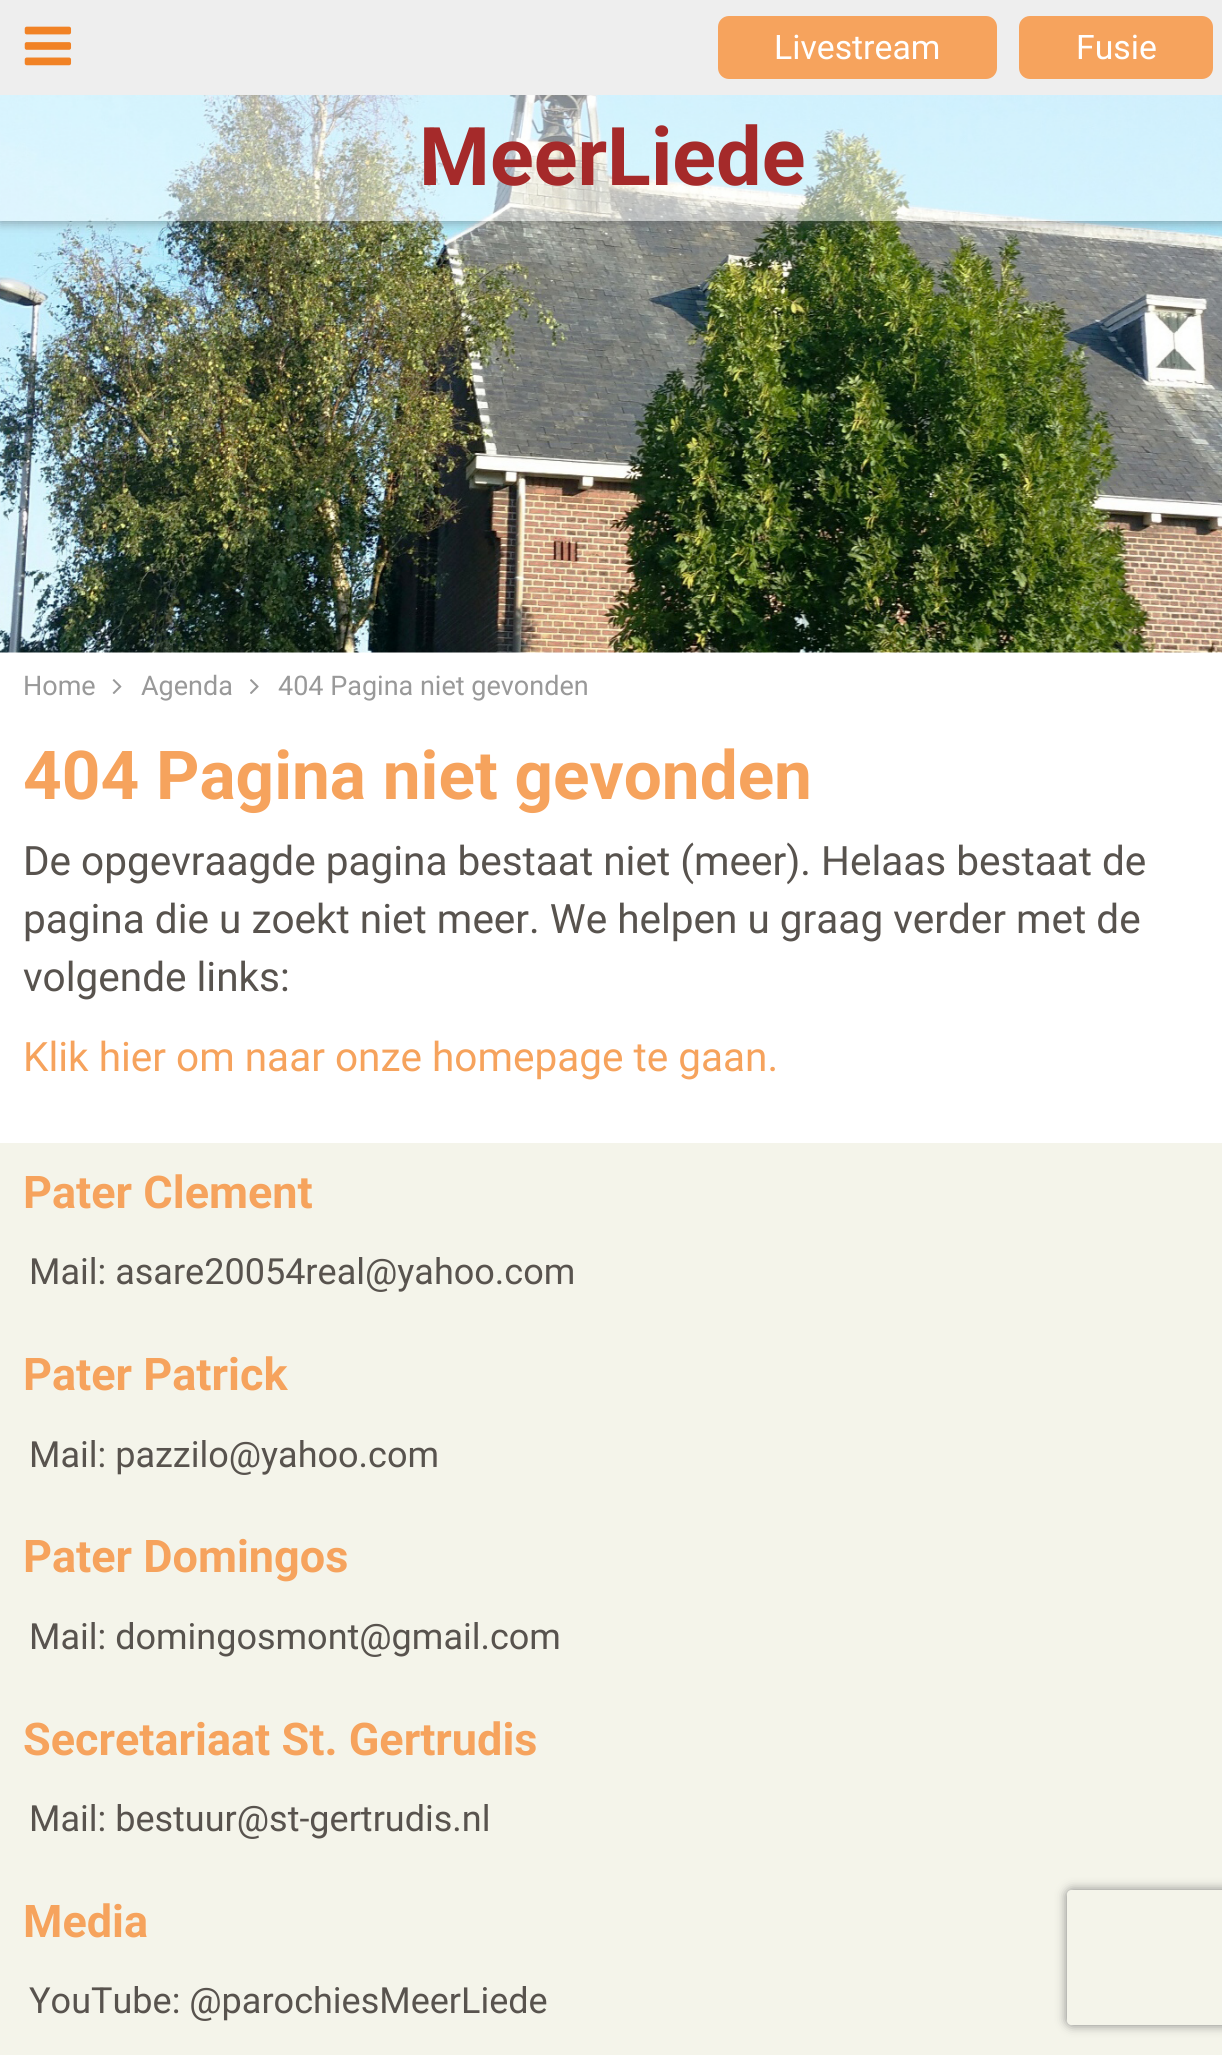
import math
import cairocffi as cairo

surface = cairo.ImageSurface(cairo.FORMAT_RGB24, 1222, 2055)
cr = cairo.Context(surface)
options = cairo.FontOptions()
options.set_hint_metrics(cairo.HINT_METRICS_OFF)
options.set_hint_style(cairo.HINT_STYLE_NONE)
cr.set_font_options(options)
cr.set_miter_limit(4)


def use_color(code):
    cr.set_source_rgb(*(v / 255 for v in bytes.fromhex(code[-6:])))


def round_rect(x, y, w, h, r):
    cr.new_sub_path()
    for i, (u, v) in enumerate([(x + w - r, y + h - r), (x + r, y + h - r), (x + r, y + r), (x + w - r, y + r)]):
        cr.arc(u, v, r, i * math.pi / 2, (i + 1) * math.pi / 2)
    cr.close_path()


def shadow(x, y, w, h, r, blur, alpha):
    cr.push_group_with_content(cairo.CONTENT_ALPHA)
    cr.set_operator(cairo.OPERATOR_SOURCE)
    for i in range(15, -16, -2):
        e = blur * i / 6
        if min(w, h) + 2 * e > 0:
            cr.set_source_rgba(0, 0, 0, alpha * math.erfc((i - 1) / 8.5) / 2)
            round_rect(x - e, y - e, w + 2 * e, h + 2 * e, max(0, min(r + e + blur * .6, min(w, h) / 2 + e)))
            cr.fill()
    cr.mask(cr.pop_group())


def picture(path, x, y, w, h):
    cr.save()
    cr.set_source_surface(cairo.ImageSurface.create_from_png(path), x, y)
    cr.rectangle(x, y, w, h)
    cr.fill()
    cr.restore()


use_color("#ffffff")
cr.paint()
picture("img2.png", 0, 95, 1222, 558)
cr.save()
cr.set_fill_rule(cairo.FILL_RULE_EVEN_ODD)
cr.new_path()
cr.move_to(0, 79)
cr.line_to(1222, 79)
cr.line_to(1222, 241)
cr.line_to(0, 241)
cr.close_path()
cr.move_to(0, 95)
cr.line_to(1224, 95)
cr.line_to(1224, 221)
cr.line_to(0, 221)
cr.close_path()
cr.clip()
use_color("#5a5a5a")
shadow(0, 97, 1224, 126, 0, 5.5, 0.5)
cr.restore()
use_color("#eeeeee")
cr.rectangle(0, 0, 1222, 95)
cr.fill()
picture("img1.png", 24, 26, 48, 40)
use_color("#f6a35d")
round_rect(718, 16, 279, 63, 11)
cr.fill()
cr.select_font_face("Roboto")
cr.set_font_size(33.75)
use_color("#ffffff")
cr.move_to(774, 59)
cr.show_text("Livestream")
use_color("#f6a35d")
round_rect(1019, 16, 194, 63, 11)
cr.fill()
use_color("#ffffff")
cr.move_to(1076, 59)
cr.show_text("Fusie")
cr.set_source_rgba(1, 1, 1, 0.5)
cr.rectangle(0, 95, 1222, 126)
cr.fill()
cr.select_font_face("Roboto", cairo.FONT_SLANT_NORMAL, cairo.FONT_WEIGHT_BOLD)
cr.set_font_size(81)
use_color("#a52a2a")
cr.move_to(419, 185)
cr.show_text("MeerLiede")
cr.select_font_face("Roboto")
cr.set_font_size(27)
use_color("#999999")
cr.move_to(23, 695)
cr.show_text("Home")
picture("img3.png", 112, 679, 10, 15)
cr.move_to(141, 695)
cr.show_text("Agenda")
picture("img4.png", 250, 679, 9, 15)
cr.move_to(278, 695)
cr.show_text("404 Pagina niet gevonden")
cr.select_font_face("Roboto", cairo.FONT_SLANT_NORMAL, cairo.FONT_WEIGHT_BOLD)
cr.set_font_size(67.5)
use_color("#f6a35d")
cr.move_to(23, 799)
cr.show_text("404 Pagina niet gevonden")
cr.select_font_face("Roboto")
cr.set_font_size(40.5)
use_color("#58534e")
cr.move_to(23, 875)
cr.show_text("De opgevraagde pagina bestaat niet (meer). Helaas bestaat de")
cr.move_to(23, 933)
cr.show_text("pagina die u zoekt niet meer. We helpen u graag verder met de")
cr.move_to(23, 991)
cr.show_text("volgende links:")
use_color("#f6a35d")
cr.move_to(23, 1071)
cr.show_text("Klik hier om naar onze homepage te gaan.")
use_color("#f4f4ea")
cr.rectangle(0, 1143, 1222, 912)
cr.fill()
cr.select_font_face("Roboto", cairo.FONT_SLANT_NORMAL, cairo.FONT_WEIGHT_BOLD)
cr.set_font_size(45)
use_color("#f6a35d")
cr.move_to(23, 1208)
cr.show_text("Pater Clement")
cr.select_font_face("Roboto")
cr.set_font_size(36)
use_color("#58534e")
cr.move_to(29, 1284)
cr.show_text("Mail: asare20054real@yahoo.com")
cr.select_font_face("Roboto", cairo.FONT_SLANT_NORMAL, cairo.FONT_WEIGHT_BOLD)
cr.set_font_size(45)
use_color("#f6a35d")
cr.move_to(23, 1390)
cr.show_text("Pater Patrick")
cr.select_font_face("Roboto")
cr.set_font_size(36)
use_color("#58534e")
cr.move_to(29, 1467)
cr.show_text("Mail: pazzilo@yahoo.com")
cr.select_font_face("Roboto", cairo.FONT_SLANT_NORMAL, cairo.FONT_WEIGHT_BOLD)
cr.set_font_size(45)
use_color("#f6a35d")
cr.move_to(23, 1572)
cr.show_text("Pater Domingos")
cr.select_font_face("Roboto")
cr.set_font_size(36)
use_color("#58534e")
cr.move_to(29, 1649)
cr.show_text("Mail: domingosmont@gmail.com")
cr.select_font_face("Roboto", cairo.FONT_SLANT_NORMAL, cairo.FONT_WEIGHT_BOLD)
cr.set_font_size(45)
use_color("#f6a35d")
cr.move_to(23, 1755)
cr.show_text("Secretariaat St. Gertrudis")
cr.select_font_face("Roboto")
cr.set_font_size(36)
use_color("#58534e")
cr.move_to(29, 1831)
cr.show_text("Mail: bestuur@st-gertrudis.nl")
cr.select_font_face("Roboto", cairo.FONT_SLANT_NORMAL, cairo.FONT_WEIGHT_BOLD)
cr.set_font_size(45)
use_color("#f6a35d")
cr.move_to(23, 1937)
cr.show_text("Media")
cr.select_font_face("Roboto")
cr.set_font_size(36)
use_color("#58534e")
cr.move_to(29, 2013)
cr.show_text("YouTube: @parochiesMeerLiede")
cr.save()
cr.set_fill_rule(cairo.FILL_RULE_EVEN_ODD)
cr.new_path()
cr.move_to(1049, 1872)
cr.line_to(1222, 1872)
cr.line_to(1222, 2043)
cr.line_to(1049, 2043)
cr.close_path()
cr.move_to(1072, 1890)
cr.line_to(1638, 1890)
cr.curve_to(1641, 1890, 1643, 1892, 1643, 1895)
cr.line_to(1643, 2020)
cr.curve_to(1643, 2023, 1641, 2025, 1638, 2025)
cr.line_to(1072, 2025)
cr.curve_to(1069, 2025, 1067, 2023, 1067, 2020)
cr.line_to(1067, 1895)
cr.curve_to(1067, 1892, 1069, 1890, 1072, 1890)
cr.close_path()
cr.clip()
use_color("#808080")
shadow(1067, 1890, 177, 135, 5, 5.5, 1)
cr.restore()
surface.write_to_png("result.png")
